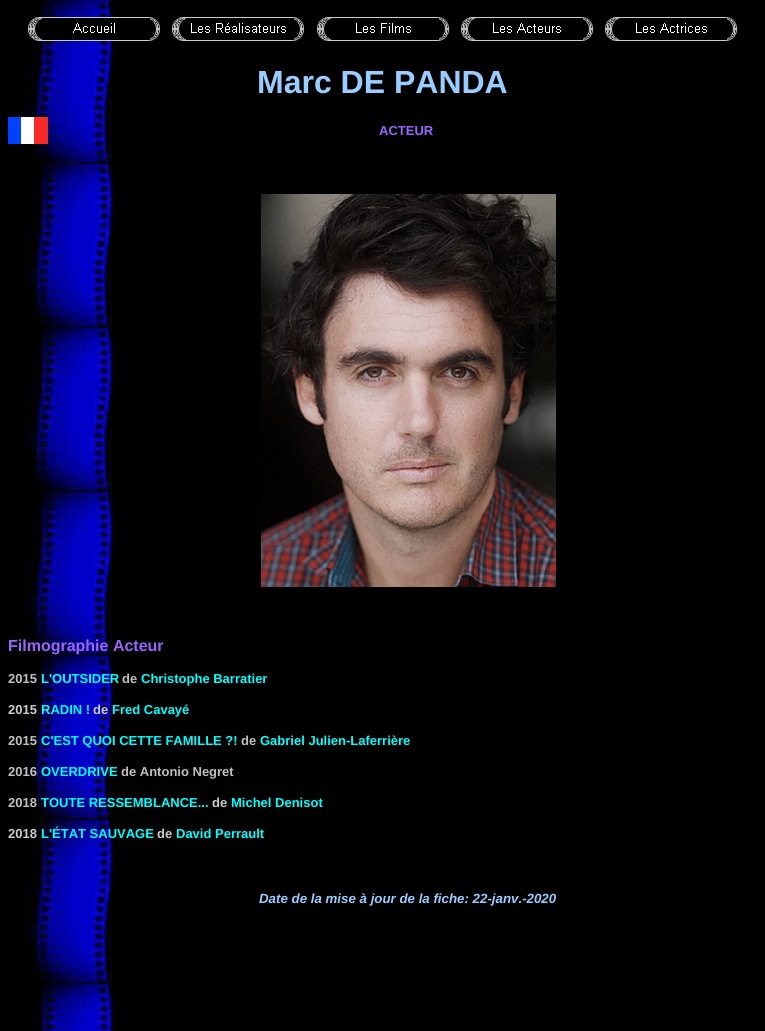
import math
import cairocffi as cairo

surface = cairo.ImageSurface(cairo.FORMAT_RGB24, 765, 1031)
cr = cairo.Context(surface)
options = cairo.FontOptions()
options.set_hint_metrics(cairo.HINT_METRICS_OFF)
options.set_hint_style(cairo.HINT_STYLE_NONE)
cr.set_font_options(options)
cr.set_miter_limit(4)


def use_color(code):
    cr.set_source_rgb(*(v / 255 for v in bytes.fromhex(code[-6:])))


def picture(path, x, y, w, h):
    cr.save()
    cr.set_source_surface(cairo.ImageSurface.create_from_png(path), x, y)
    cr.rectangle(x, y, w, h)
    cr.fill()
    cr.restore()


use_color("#000000")
cr.paint()
picture("img1.png", 25, 0, 88, 1031)
picture("img2.png", 28, 17, 132, 24)
picture("img3.png", 172, 17, 132, 24)
picture("img4.png", 317, 17, 132, 24)
picture("img5.png", 461, 17, 132, 24)
picture("img6.png", 605, 17, 132, 24)
cr.select_font_face("Liberation Sans", cairo.FONT_SLANT_NORMAL, cairo.FONT_WEIGHT_BOLD)
cr.set_font_size(32)
use_color("#99ccff")
cr.move_to(257, 93)
cr.show_text("Marc DE PANDA")
picture("img7.png", 8, 117, 40, 27)
cr.set_font_size(13)
use_color("#9966ff")
cr.move_to(379, 135)
cr.show_text("ACTEUR")
picture("img8.png", 261, 194, 295, 393)
cr.set_font_size(16)
cr.move_to(8, 651)
cr.show_text("Filmographie Acteur")
cr.set_font_size(13)
use_color("#c0c0c0")
cr.move_to(8, 683)
cr.show_text("2015")
use_color("#00ffff")
cr.move_to(41, 683)
cr.show_text("L'OUTSIDER")
use_color("#c0c0c0")
cr.move_to(122, 683)
cr.show_text("de")
use_color("#00ffff")
cr.move_to(141, 683)
cr.show_text("Christophe Barratier")
use_color("#cccccc")
cr.move_to(8, 714)
cr.show_text("2015")
use_color("#00ffff")
cr.move_to(41, 714)
cr.show_text("RADIN !")
use_color("#cccccc")
cr.move_to(93, 714)
cr.show_text("de")
use_color("#00ffff")
cr.move_to(112, 714)
cr.show_text("Fred Cavayé")
use_color("#c0c0c0")
cr.move_to(8, 745)
cr.show_text("2015")
use_color("#00ffff")
cr.move_to(41, 745)
cr.show_text("C'EST QUOI CETTE FAMILLE ?!")
use_color("#c0c0c0")
cr.move_to(241, 745)
cr.show_text("de")
use_color("#00ffff")
cr.move_to(260, 745)
cr.show_text("Gabriel Julien-Laferrière")
use_color("#c0c0c0")
cr.move_to(8, 776)
cr.show_text("2016")
use_color("#00ffff")
cr.move_to(41, 776)
cr.show_text("OVERDRIVE")
use_color("#c0c0c0")
cr.move_to(121, 776)
cr.show_text("de Antonio Negret")
cr.move_to(8, 807)
cr.show_text("2018")
use_color("#00ffff")
cr.move_to(41, 807)
cr.show_text("TOUTE RESSEMBLANCE...")
use_color("#cccccc")
cr.move_to(212, 807)
cr.show_text("de")
use_color("#00ffff")
cr.move_to(231, 807)
cr.show_text("Michel Denisot")
use_color("#cccccc")
cr.move_to(8, 838)
cr.show_text("2018")
use_color("#00ffff")
cr.move_to(41, 838)
cr.show_text("L'ÉTAT SAUVAGE")
use_color("#cccccc")
cr.move_to(157, 838)
cr.show_text("de")
use_color("#00ffff")
cr.move_to(176, 838)
cr.show_text("David Perrault")
cr.select_font_face("Liberation Sans", cairo.FONT_SLANT_ITALIC, cairo.FONT_WEIGHT_BOLD)
cr.set_font_size(13.3)
use_color("#99ccff")
cr.move_to(259, 903)
cr.show_text("Date de la mise à jour de la fiche: 22-janv.-2020")
surface.write_to_png("result.png")
